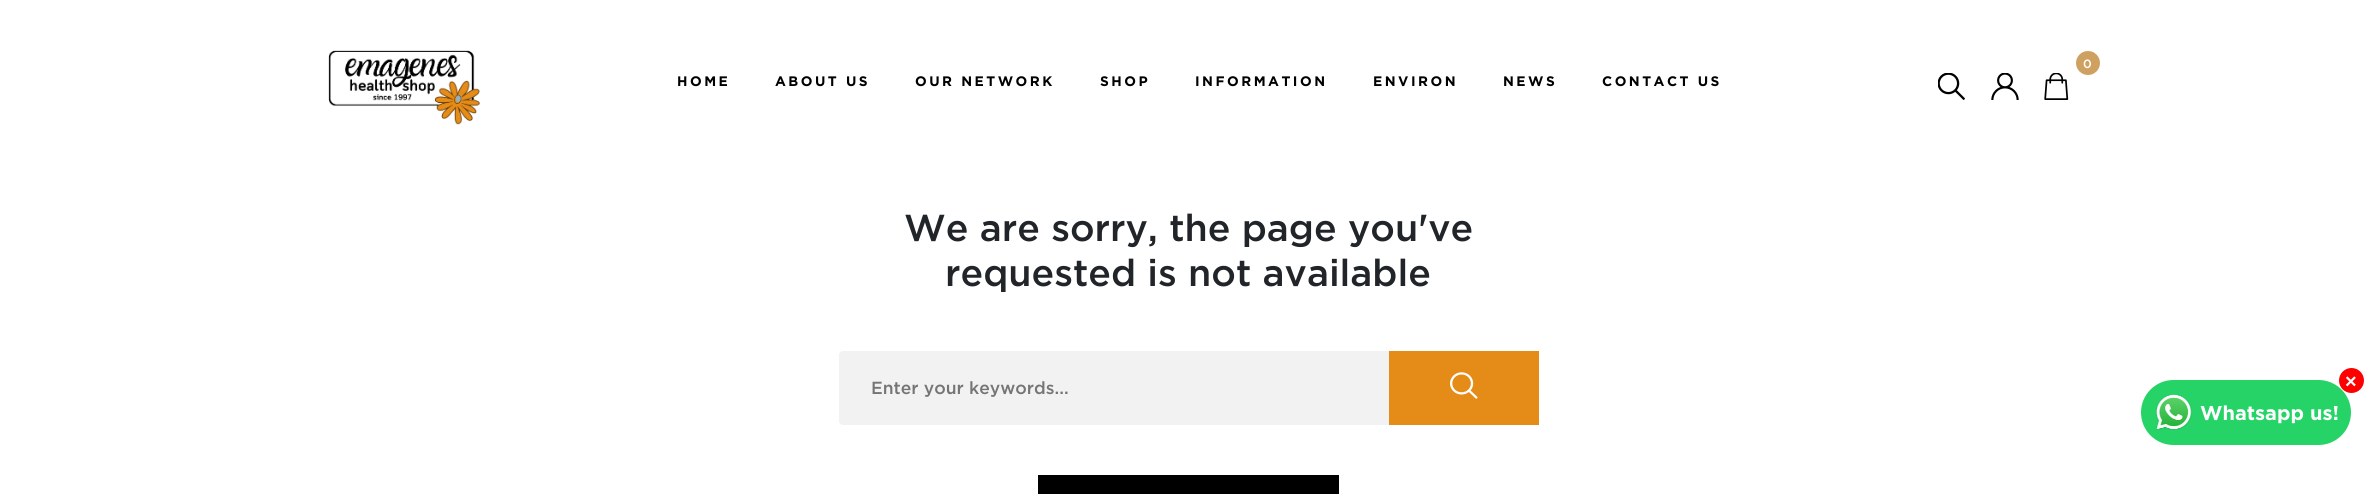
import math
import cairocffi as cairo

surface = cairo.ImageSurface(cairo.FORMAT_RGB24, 2376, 494)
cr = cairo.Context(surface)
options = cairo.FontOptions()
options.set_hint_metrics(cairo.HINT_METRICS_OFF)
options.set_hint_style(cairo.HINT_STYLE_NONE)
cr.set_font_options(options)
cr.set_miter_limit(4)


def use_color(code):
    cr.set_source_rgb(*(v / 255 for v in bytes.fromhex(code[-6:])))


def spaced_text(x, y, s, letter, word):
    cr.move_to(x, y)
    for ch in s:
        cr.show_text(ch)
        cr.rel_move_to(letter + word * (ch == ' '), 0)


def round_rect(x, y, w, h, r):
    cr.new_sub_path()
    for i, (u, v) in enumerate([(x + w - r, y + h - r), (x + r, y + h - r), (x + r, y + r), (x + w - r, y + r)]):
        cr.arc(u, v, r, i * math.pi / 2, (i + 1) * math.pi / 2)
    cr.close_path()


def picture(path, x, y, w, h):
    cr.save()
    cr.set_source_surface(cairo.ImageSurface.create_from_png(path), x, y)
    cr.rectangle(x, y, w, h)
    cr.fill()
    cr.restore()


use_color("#ffffff")
cr.paint()
picture("img1.png", 328, 50, 152, 75)
use_color("#cfa161")
cr.arc(2088, 63, 12, 0, 2 * math.pi)
cr.fill()
cr.select_font_face("Gotham Medium")
cr.set_font_size(12)
use_color("#ffffff")
cr.move_to(2083, 68)
cr.show_text("0")
picture("img2.png", 2044, 73, 25, 27)
picture("img3.png", 1938, 73, 27, 27)
picture("img4.png", 1991, 73, 28, 27)
cr.select_font_face("Gotham", cairo.FONT_SLANT_NORMAL, cairo.FONT_WEIGHT_BOLD)
cr.set_font_size(13.75)
use_color("#000000")
spaced_text(677, 86, "HOME", 2.5, 0)
spaced_text(775, 86, "ABOUT US", 2.5, 0)
spaced_text(915, 86, "OUR NETWORK", 2.5, 0)
spaced_text(1100, 86, "SHOP", 2.5, 0)
spaced_text(1195, 86, "INFORMATION", 2.5, 0)
spaced_text(1373, 86, "ENVIRON", 2.5, 0)
spaced_text(1503, 86, "NEWS", 2.5, 0)
spaced_text(1602, 86, "CONTACT US", 2.5, 0)
cr.select_font_face("Gotham Medium")
cr.set_font_size(37.5)
use_color("#212529")
cr.move_to(904, 241)
cr.show_text("We are sorry, the page you've")
cr.move_to(945, 286)
cr.show_text("requested is not available")
use_color("#f2f2f2")
round_rect(839.5, 351.5, 699, 73, 3.5)
cr.fill_preserve()
cr.set_line_width(1)
cr.stroke()
cr.set_font_size(17.5)
use_color("#757575")
cr.move_to(871, 394)
cr.show_text("Enter your keywords...")
use_color("#e58c18")
cr.rectangle(1389, 351, 150, 74)
cr.fill()
picture("img5.png", 1450, 372, 28, 27)
use_color("#000000")
cr.rectangle(1038, 475, 301, 19)
cr.fill()
use_color("#25d366")
round_rect(2141, 380, 210, 65, 32.5)
cr.fill()
use_color("#ff0000")
cr.arc(2351.5, 380.5, 12.5, 0, 2 * math.pi)
cr.fill()
cr.select_font_face("Liberation Sans", cairo.FONT_SLANT_NORMAL, cairo.FONT_WEIGHT_BOLD)
cr.set_font_size(20)
use_color("#ffffff")
cr.move_to(2345, 388)
cr.show_text("×")
picture("img6.png", 2156, 394, 36, 36)
cr.select_font_face("Gotham", cairo.FONT_SLANT_NORMAL, cairo.FONT_WEIGHT_BOLD)
cr.move_to(2200, 420)
cr.show_text("Whatsapp us!")
surface.write_to_png("result.png")
